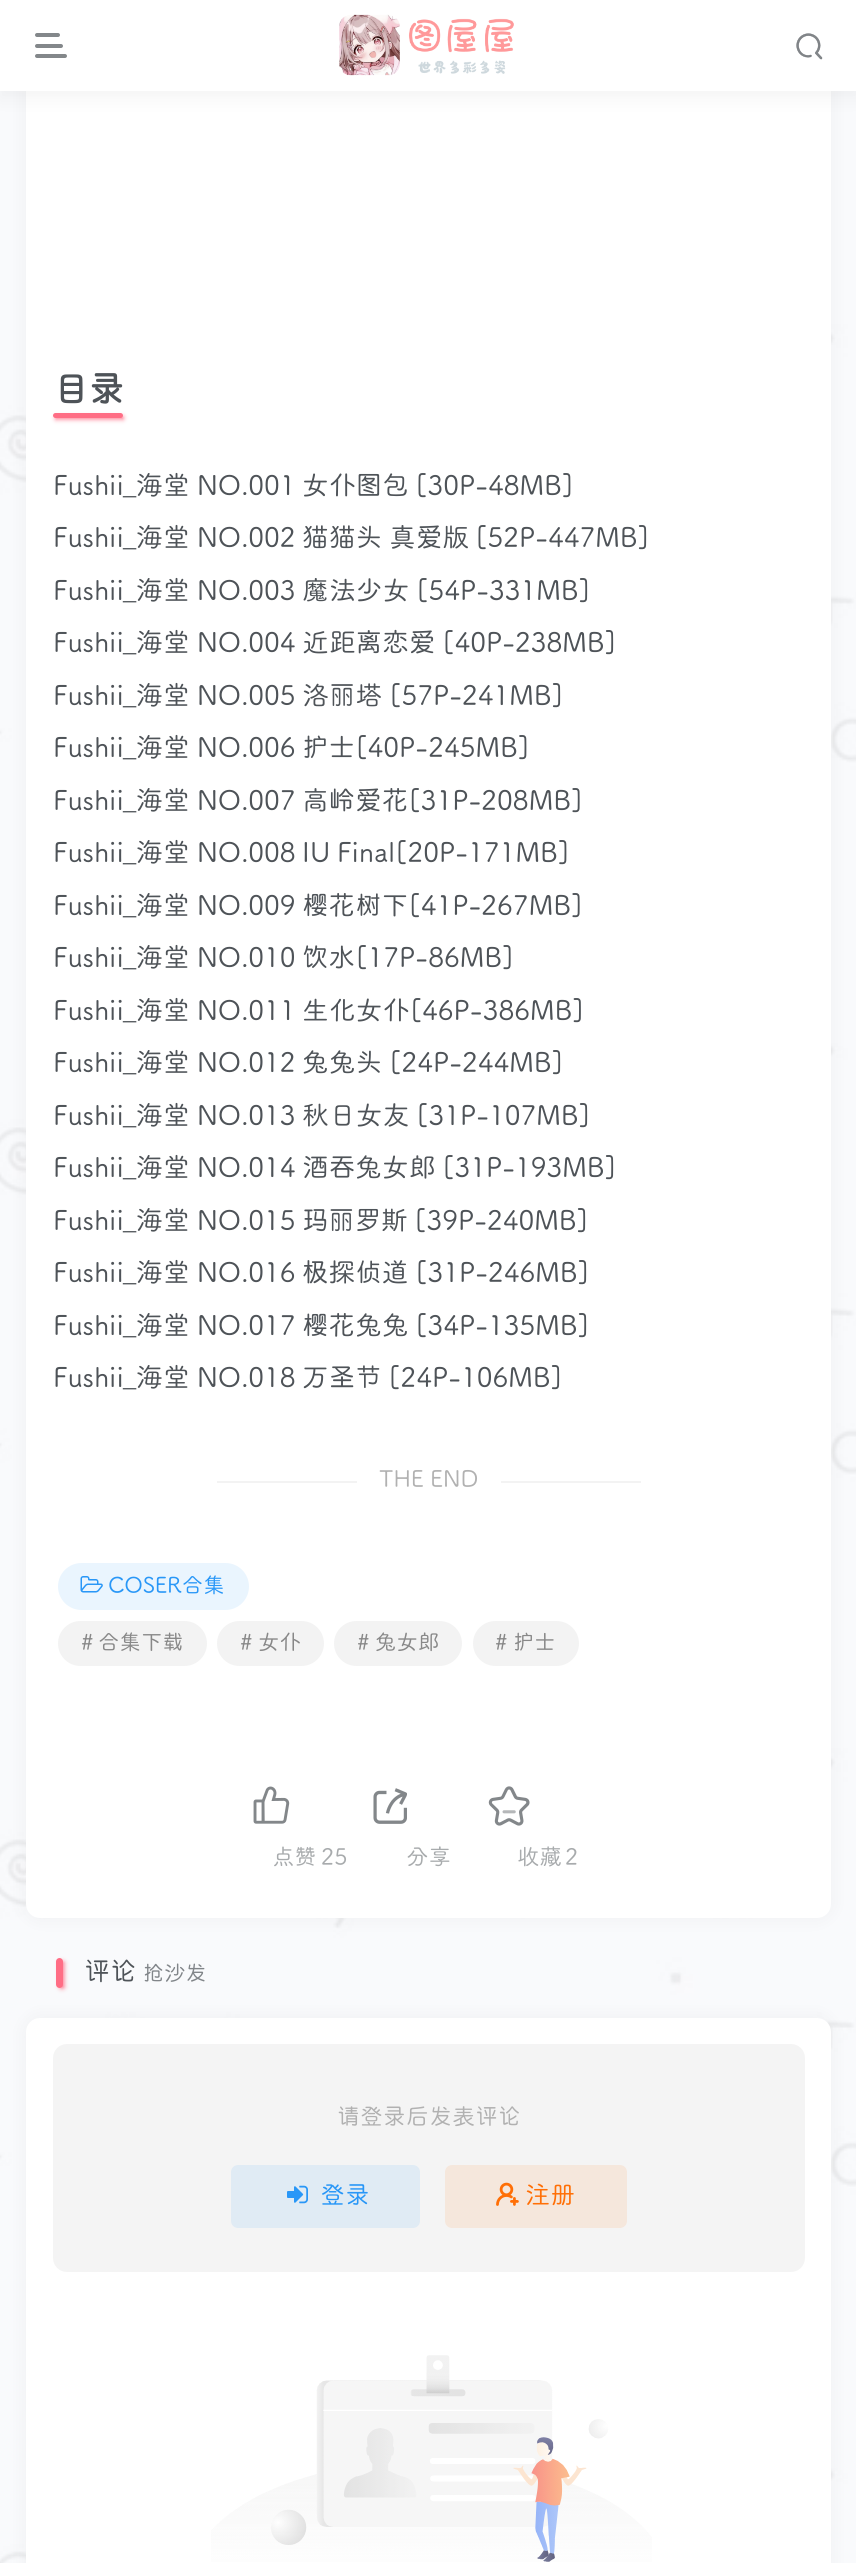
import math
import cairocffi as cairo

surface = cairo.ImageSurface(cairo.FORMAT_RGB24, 856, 2563)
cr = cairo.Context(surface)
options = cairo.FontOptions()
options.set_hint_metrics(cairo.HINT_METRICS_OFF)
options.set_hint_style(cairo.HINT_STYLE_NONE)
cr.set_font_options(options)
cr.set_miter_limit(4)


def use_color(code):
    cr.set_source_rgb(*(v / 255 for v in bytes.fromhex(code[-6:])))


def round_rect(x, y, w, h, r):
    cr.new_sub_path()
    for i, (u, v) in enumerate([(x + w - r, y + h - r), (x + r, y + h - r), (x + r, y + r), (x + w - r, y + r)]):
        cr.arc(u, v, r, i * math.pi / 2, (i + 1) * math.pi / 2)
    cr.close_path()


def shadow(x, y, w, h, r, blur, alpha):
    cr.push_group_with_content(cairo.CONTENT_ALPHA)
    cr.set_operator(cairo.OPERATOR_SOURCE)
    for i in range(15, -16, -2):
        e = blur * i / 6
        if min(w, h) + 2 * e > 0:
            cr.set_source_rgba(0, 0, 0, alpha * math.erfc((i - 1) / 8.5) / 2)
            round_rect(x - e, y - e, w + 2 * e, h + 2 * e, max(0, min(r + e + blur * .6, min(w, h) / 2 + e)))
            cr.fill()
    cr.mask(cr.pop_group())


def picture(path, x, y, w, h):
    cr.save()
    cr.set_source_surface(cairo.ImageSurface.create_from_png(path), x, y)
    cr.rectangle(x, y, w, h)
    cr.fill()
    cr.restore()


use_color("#ffffff")
cr.paint()
picture("img1.png", 0, 91, 856, 2472)
use_color("#747474")
shadow(26, -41, 805, 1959, 14, 9, 0.08)
use_color("#ffffff")
round_rect(26, -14, 805, 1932, 14)
cr.fill()
use_color("#747474")
shadow(0, 7, 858, 91, 0, 9, 0.08)
use_color("#ffffff")
cr.rectangle(0, 0, 856, 91)
cr.fill()
use_color("#83878a")
round_rect(35, 33, 25, 4, 2)
cr.fill()
round_rect(35, 44, 28, 4, 2)
cr.fill()
round_rect(35, 54, 32, 4, 2)
cr.fill()
picture("img2.png", 339, 14, 175, 62)
picture("img3.png", 796, 33, 27, 27)
cr.select_font_face("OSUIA", cairo.FONT_SLANT_NORMAL, cairo.FONT_WEIGHT_BOLD)
cr.set_font_size(35)
use_color("#4e5358")
cr.move_to(53, 401)
cr.show_text("目录")
use_color("#ff6d85")
shadow(56, 417, 67, 2, 1, 2.5, 1)
use_color("#ff6d85")
round_rect(53, 413, 70, 5, 2.5)
cr.fill()
cr.select_font_face("OSUIA")
cr.set_font_size(26.25)
use_color("#4e5358")
cr.move_to(53, 494)
cr.show_text("Fushii")
cr.move_to(136, 494)
cr.show_text("海堂")
cr.move_to(197, 494)
cr.show_text("NO.001")
cr.move_to(302, 494)
cr.show_text("女仆图包")
cr.move_to(415, 494)
cr.show_text("[30P-48MB]")
cr.select_font_face("Liberation Serif")
cr.move_to(123, 494)
cr.show_text("_")
cr.select_font_face("OSUIA")
cr.move_to(53, 546)
cr.show_text("Fushii")
cr.move_to(136, 546)
cr.show_text("海堂")
cr.move_to(197, 546)
cr.show_text("NO.002")
cr.move_to(302, 546)
cr.show_text("猫猫头")
cr.move_to(389, 546)
cr.show_text("真爱版")
cr.move_to(475, 546)
cr.show_text("[52P-447MB]")
cr.select_font_face("Liberation Serif")
cr.move_to(123, 546)
cr.show_text("_")
cr.select_font_face("OSUIA")
cr.move_to(53, 599)
cr.show_text("Fushii")
cr.move_to(136, 599)
cr.show_text("海堂")
cr.move_to(197, 599)
cr.show_text("NO.003")
cr.move_to(302, 599)
cr.show_text("魔法少女")
cr.move_to(416, 599)
cr.show_text("[54P-331MB]")
cr.select_font_face("Liberation Serif")
cr.move_to(123, 599)
cr.show_text("_")
cr.select_font_face("OSUIA")
cr.move_to(53, 651)
cr.show_text("Fushii")
cr.move_to(136, 651)
cr.show_text("海堂")
cr.move_to(197, 651)
cr.show_text("NO.004")
cr.move_to(302, 651)
cr.show_text("近距离恋爱")
cr.move_to(442, 651)
cr.show_text("[40P-238MB]")
cr.select_font_face("Liberation Serif")
cr.move_to(123, 651)
cr.show_text("_")
cr.select_font_face("OSUIA")
cr.move_to(53, 704)
cr.show_text("Fushii")
cr.move_to(136, 704)
cr.show_text("海堂")
cr.move_to(197, 704)
cr.show_text("NO.005")
cr.move_to(302, 704)
cr.show_text("洛丽塔")
cr.move_to(389, 704)
cr.show_text("[57P-241MB]")
cr.select_font_face("Liberation Serif")
cr.move_to(123, 704)
cr.show_text("_")
cr.select_font_face("OSUIA")
cr.move_to(53, 756)
cr.show_text("Fushii")
cr.move_to(136, 756)
cr.show_text("海堂")
cr.move_to(197, 756)
cr.show_text("NO.006")
cr.move_to(302, 756)
cr.show_text("护士[40P-245MB]")
cr.select_font_face("Liberation Serif")
cr.move_to(123, 756)
cr.show_text("_")
cr.select_font_face("OSUIA")
cr.move_to(53, 809)
cr.show_text("Fushii")
cr.move_to(136, 809)
cr.show_text("海堂")
cr.move_to(197, 809)
cr.show_text("NO.007")
cr.move_to(302, 809)
cr.show_text("高岭爱花[31P-208MB]")
cr.select_font_face("Liberation Serif")
cr.move_to(123, 809)
cr.show_text("_")
cr.select_font_face("OSUIA")
cr.move_to(53, 861)
cr.show_text("Fushii")
cr.move_to(136, 861)
cr.show_text("海堂")
cr.move_to(197, 861)
cr.show_text("NO.008")
cr.move_to(302, 861)
cr.show_text("IU")
cr.move_to(337, 861)
cr.show_text("Final[20P-171MB]")
cr.select_font_face("Liberation Serif")
cr.move_to(123, 861)
cr.show_text("_")
cr.select_font_face("OSUIA")
cr.move_to(53, 914)
cr.show_text("Fushii")
cr.move_to(136, 914)
cr.show_text("海堂")
cr.move_to(197, 914)
cr.show_text("NO.009")
cr.move_to(302, 914)
cr.show_text("樱花树下[41P-267MB]")
cr.select_font_face("Liberation Serif")
cr.move_to(123, 914)
cr.show_text("_")
cr.select_font_face("OSUIA")
cr.move_to(53, 966)
cr.show_text("Fushii")
cr.move_to(136, 966)
cr.show_text("海堂")
cr.move_to(197, 966)
cr.show_text("NO.010")
cr.move_to(302, 966)
cr.show_text("饮水[17P-86MB]")
cr.select_font_face("Liberation Serif")
cr.move_to(123, 966)
cr.show_text("_")
cr.select_font_face("OSUIA")
cr.move_to(53, 1019)
cr.show_text("Fushii")
cr.move_to(136, 1019)
cr.show_text("海堂")
cr.move_to(197, 1019)
cr.show_text("NO.011")
cr.move_to(302, 1019)
cr.show_text("生化女仆[46P-386MB]")
cr.select_font_face("Liberation Serif")
cr.move_to(123, 1019)
cr.show_text("_")
cr.select_font_face("OSUIA")
cr.move_to(53, 1071)
cr.show_text("Fushii")
cr.move_to(136, 1071)
cr.show_text("海堂")
cr.move_to(197, 1071)
cr.show_text("NO.012")
cr.move_to(302, 1071)
cr.show_text("兔兔头")
cr.move_to(389, 1071)
cr.show_text("[24P-244MB]")
cr.select_font_face("Liberation Serif")
cr.move_to(123, 1071)
cr.show_text("_")
cr.select_font_face("OSUIA")
cr.move_to(53, 1124)
cr.show_text("Fushii")
cr.move_to(136, 1124)
cr.show_text("海堂")
cr.move_to(197, 1124)
cr.show_text("NO.013")
cr.move_to(302, 1124)
cr.show_text("秋日女友")
cr.move_to(416, 1124)
cr.show_text("[31P-107MB]")
cr.select_font_face("Liberation Serif")
cr.move_to(123, 1124)
cr.show_text("_")
cr.select_font_face("OSUIA")
cr.move_to(53, 1176)
cr.show_text("Fushii")
cr.move_to(136, 1176)
cr.show_text("海堂")
cr.move_to(197, 1176)
cr.show_text("NO.014")
cr.move_to(302, 1176)
cr.show_text("酒吞兔女郎")
cr.move_to(442, 1176)
cr.show_text("[31P-193MB]")
cr.select_font_face("Liberation Serif")
cr.move_to(123, 1176)
cr.show_text("_")
cr.select_font_face("OSUIA")
cr.move_to(53, 1229)
cr.show_text("Fushii")
cr.move_to(136, 1229)
cr.show_text("海堂")
cr.move_to(197, 1229)
cr.show_text("NO.015")
cr.move_to(302, 1229)
cr.show_text("玛丽罗斯")
cr.move_to(414, 1229)
cr.show_text("[39P-240MB]")
cr.select_font_face("Liberation Serif")
cr.move_to(123, 1229)
cr.show_text("_")
cr.select_font_face("OSUIA")
cr.move_to(53, 1281)
cr.show_text("Fushii")
cr.move_to(136, 1281)
cr.show_text("海堂")
cr.move_to(197, 1281)
cr.show_text("NO.016")
cr.move_to(302, 1281)
cr.show_text("极探侦道")
cr.move_to(415, 1281)
cr.show_text("[31P-246MB]")
cr.select_font_face("Liberation Serif")
cr.move_to(123, 1281)
cr.show_text("_")
cr.select_font_face("OSUIA")
cr.move_to(53, 1334)
cr.show_text("Fushii")
cr.move_to(136, 1334)
cr.show_text("海堂")
cr.move_to(197, 1334)
cr.show_text("NO.017")
cr.move_to(302, 1334)
cr.show_text("樱花兔兔")
cr.move_to(415, 1334)
cr.show_text("[34P-135MB]")
cr.select_font_face("Liberation Serif")
cr.move_to(123, 1334)
cr.show_text("_")
cr.select_font_face("OSUIA")
cr.move_to(53, 1386)
cr.show_text("Fushii")
cr.move_to(136, 1386)
cr.show_text("海堂")
cr.move_to(197, 1386)
cr.show_text("NO.018")
cr.move_to(302, 1386)
cr.show_text("万圣节")
cr.move_to(388, 1386)
cr.show_text("[24P-106MB]")
cr.select_font_face("Liberation Serif")
cr.move_to(123, 1386)
cr.show_text("_")
use_color("#f3f3f3")
cr.rectangle(217, 1481, 140, 2)
cr.fill()
cr.select_font_face("OSUIA")
cr.set_font_size(22)
use_color("#b1b1b1")
cr.move_to(379, 1486)
cr.show_text("THE")
cr.move_to(430, 1486)
cr.show_text("END")
use_color("#f3f3f3")
cr.rectangle(501, 1481, 140, 2)
cr.fill()
use_color("#eaf5fe")
round_rect(58, 1563, 191, 47, 23.5)
cr.fill()
picture("img4.png", 80, 1576, 23, 17)
cr.set_font_size(21)
use_color("#2997f7")
cr.move_to(108, 1592)
cr.show_text("COSER合集")
use_color("#f3f3f3")
round_rect(58, 1621, 149, 45, 22.5)
cr.fill()
use_color("#888888")
cr.move_to(81, 1649)
cr.show_text("#")
cr.move_to(98, 1649)
cr.show_text("合集下载")
use_color("#f3f3f3")
round_rect(217, 1621, 107, 45, 22.5)
cr.fill()
use_color("#888888")
cr.move_to(240, 1649)
cr.show_text("#")
cr.move_to(258, 1649)
cr.show_text("女仆")
use_color("#f3f3f3")
round_rect(334, 1621, 128, 45, 22.5)
cr.fill()
use_color("#888888")
cr.move_to(357, 1649)
cr.show_text("#")
cr.move_to(375, 1649)
cr.show_text("兔女郎")
use_color("#f3f3f3")
round_rect(473, 1621, 106, 45, 22.5)
cr.fill()
use_color("#888888")
cr.move_to(495, 1649)
cr.show_text("#")
cr.move_to(513, 1649)
cr.show_text("护士")
picture("img5.png", 253, 1786, 37, 38)
cr.set_font_size(22)
use_color("#a8abad")
cr.move_to(272, 1864)
cr.show_text("点赞")
cr.move_to(321, 1864)
cr.show_text("25")
picture("img6.png", 373, 1788, 34, 36)
cr.move_to(406, 1864)
cr.show_text("分享")
picture("img7.png", 488, 1786, 42, 40)
cr.move_to(517, 1864)
cr.show_text("收藏")
cr.move_to(565, 1864)
cr.show_text("2")
use_color("#ff6d85")
shadow(60, 1962, 4, 26, 2, 2.5, 1)
use_color("#ff6d85")
round_rect(56, 1958, 7, 30, 3.5)
cr.fill()
cr.set_font_size(26.25)
use_color("#4e5358")
cr.move_to(84, 1980)
cr.show_text("评论")
cr.set_font_size(21)
use_color("#818589")
cr.move_to(143, 1980)
cr.show_text("抢沙发")
use_color("#747474")
shadow(26, 2018, 805, 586, 14, 9, 0.08)
use_color("#ffffff")
round_rect(26, 2018, 805, 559, 14)
cr.fill()
use_color("#f4f4f4")
round_rect(53, 2044, 752, 228, 14)
cr.fill()
cr.set_font_size(22.75)
use_color("#b1b1b1")
cr.move_to(337, 2124)
cr.show_text("请登录后发表评论")
use_color("#e0ebf4")
round_rect(231, 2165, 189, 63, 7)
cr.fill()
picture("img8.png", 287, 2185, 21, 19)
cr.set_font_size(24.5)
use_color("#2997f7")
cr.move_to(320, 2203)
cr.show_text("登录")
use_color("#f5e7dc")
round_rect(445, 2165, 182, 63, 7)
cr.fill()
picture("img9.png", 496, 2182, 23, 24)
use_color("#ff6f06")
cr.move_to(525, 2203)
cr.show_text("注册")
picture("img10.png", 211, 2355, 441, 207)
surface.write_to_png("result.png")
